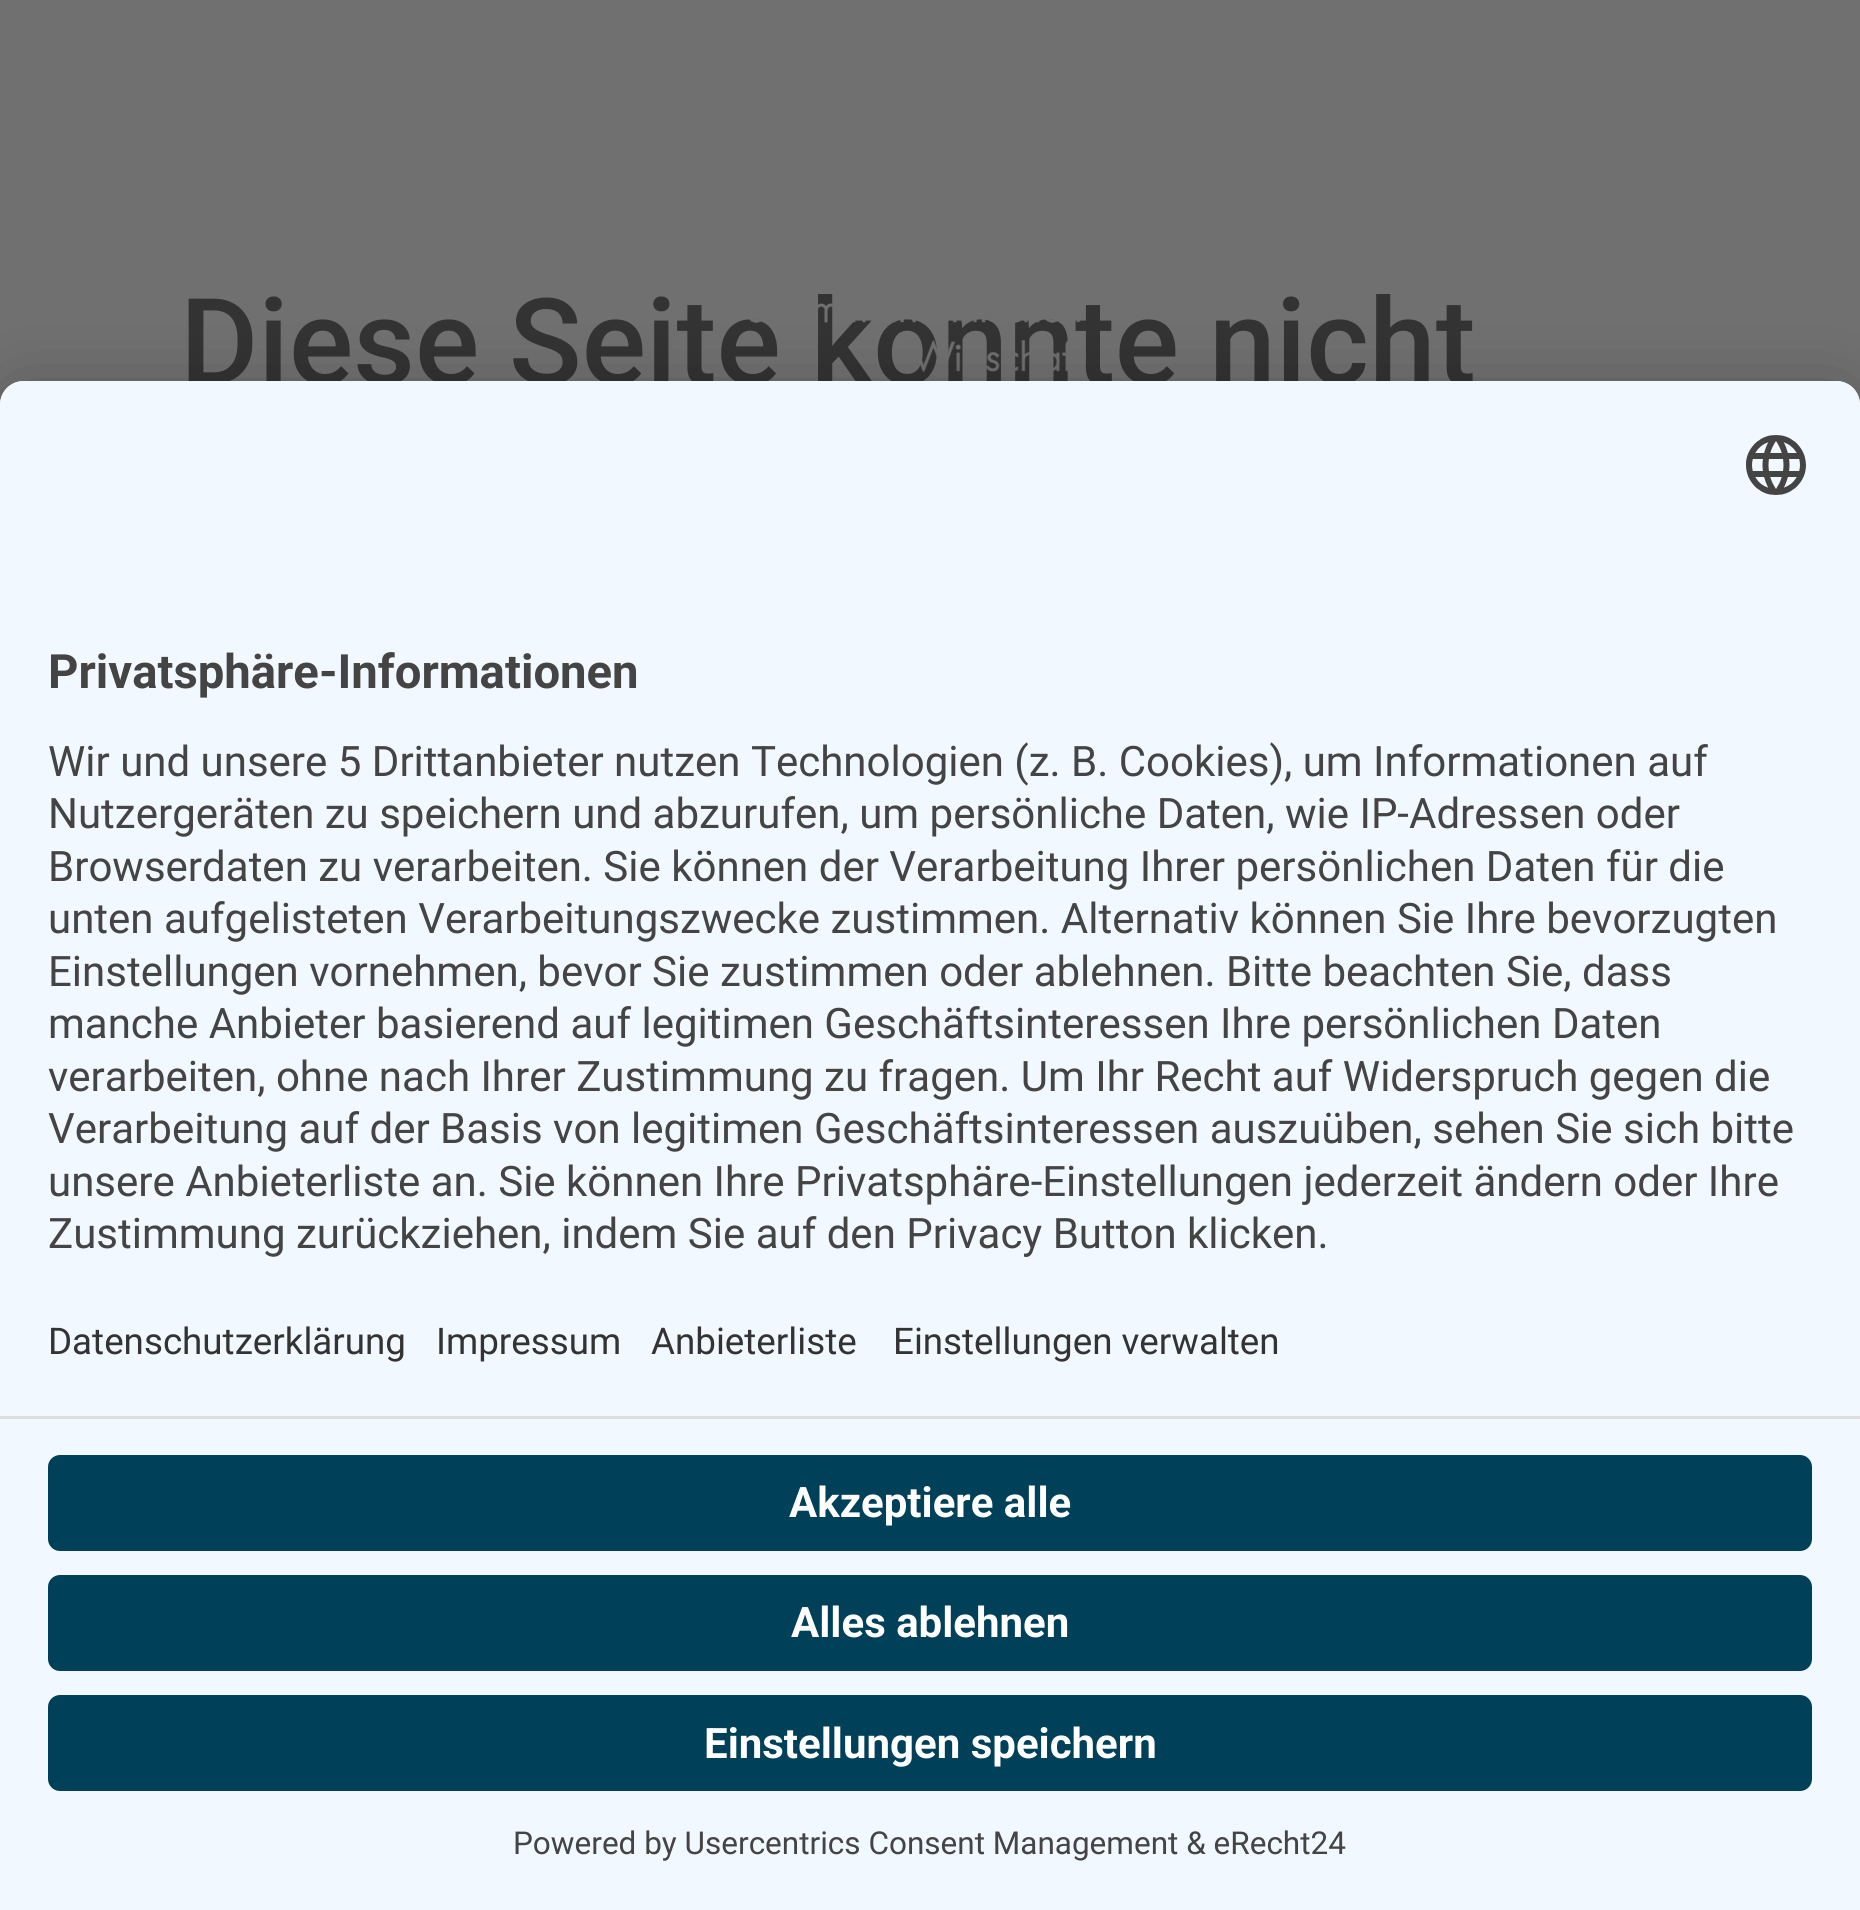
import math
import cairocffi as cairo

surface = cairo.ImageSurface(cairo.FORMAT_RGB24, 1860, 1910)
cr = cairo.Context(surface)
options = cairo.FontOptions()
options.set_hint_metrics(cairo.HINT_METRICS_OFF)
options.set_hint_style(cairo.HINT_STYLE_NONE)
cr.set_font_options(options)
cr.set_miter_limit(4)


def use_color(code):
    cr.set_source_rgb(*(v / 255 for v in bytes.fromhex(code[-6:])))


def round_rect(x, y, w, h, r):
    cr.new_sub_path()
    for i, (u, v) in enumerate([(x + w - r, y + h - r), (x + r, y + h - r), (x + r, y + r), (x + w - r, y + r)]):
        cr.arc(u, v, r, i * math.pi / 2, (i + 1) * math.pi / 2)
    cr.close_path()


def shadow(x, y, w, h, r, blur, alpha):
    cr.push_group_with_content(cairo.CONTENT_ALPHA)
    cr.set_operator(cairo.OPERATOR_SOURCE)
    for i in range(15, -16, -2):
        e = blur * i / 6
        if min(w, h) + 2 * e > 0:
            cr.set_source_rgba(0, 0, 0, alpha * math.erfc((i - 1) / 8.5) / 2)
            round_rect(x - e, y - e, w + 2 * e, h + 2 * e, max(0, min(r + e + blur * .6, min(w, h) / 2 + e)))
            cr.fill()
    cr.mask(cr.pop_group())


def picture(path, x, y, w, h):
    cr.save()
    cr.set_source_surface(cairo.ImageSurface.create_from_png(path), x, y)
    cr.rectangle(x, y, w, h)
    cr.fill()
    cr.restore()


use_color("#707070")
cr.paint()
cr.select_font_face("Roboto Medium")
cr.set_font_size(120)
use_color("#333333")
cr.move_to(180, 384)
cr.show_text("Diese Seite konnte nicht")
picture("img1.png", 748, 303, 333, 69)
use_color("#000000")
shadow(0, 441, 1860, 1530, 24, 42, 0.3)
shadow(0, 396, 1860, 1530, 24, 39, 0.22)
use_color("#f1f8ff")
cr.new_path()
cr.move_to(24, 381)
cr.line_to(1836, 381)
cr.curve_to(1849.5, 381, 1860, 391.5, 1860, 405)
cr.line_to(1860, 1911)
cr.line_to(0, 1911)
cr.line_to(0, 405)
cr.curve_to(0, 391.5, 10.5, 381, 24, 381)
cr.close_path()
cr.fill()
cr.new_path()
cr.move_to(24, 381)
cr.line_to(1836, 381)
cr.curve_to(1849.5, 381, 1860, 391.5, 1860, 405)
cr.line_to(1860, 1416)
cr.line_to(0, 1416)
cr.line_to(0, 405)
cr.curve_to(0, 391.5, 10.5, 381, 24, 381)
cr.close_path()
cr.fill()
picture("img2.png", 1746, 435, 60, 60)
cr.select_font_face("Roboto", cairo.FONT_SLANT_NORMAL, cairo.FONT_WEIGHT_BOLD)
cr.set_font_size(47.25)
use_color("#444444")
cr.move_to(48, 688)
cr.show_text("Privatsphäre-Informationen")
cr.select_font_face("Roboto")
cr.set_font_size(42)
cr.move_to(48, 776)
cr.show_text("Wir und unsere 5 Drittanbieter nutzen Technologien (z. B. Cookies), um Informationen auf")
cr.move_to(48, 828)
cr.show_text("Nutzergeräten zu speichern und abzurufen, um persönliche Daten, wie IP-Adressen oder")
cr.move_to(48, 881)
cr.show_text("Browserdaten zu verarbeiten. Sie können der Verarbeitung Ihrer persönlichen Daten für die")
cr.move_to(48, 933)
cr.show_text("unten aufgelisteten Verarbeitungszwecke zustimmen. Alternativ können Sie Ihre bevorzugten")
cr.move_to(48, 986)
cr.show_text("Einstellungen vornehmen, bevor Sie zustimmen oder ablehnen. Bitte beachten Sie, dass")
cr.move_to(48, 1038)
cr.show_text("manche Anbieter basierend auf legitimen Geschäftsinteressen Ihre persönlichen Daten")
cr.move_to(48, 1091)
cr.show_text("verarbeiten, ohne nach Ihrer Zustimmung zu fragen. Um Ihr Recht auf Widerspruch gegen die")
cr.move_to(48, 1143)
cr.show_text("Verarbeitung auf der Basis von legitimen Geschäftsinteressen auszuüben, sehen Sie sich bitte")
cr.move_to(48, 1196)
cr.show_text("unsere Anbieterliste an. Sie können Ihre Privatsphäre-Einstellungen jederzeit ändern oder Ihre")
cr.move_to(48, 1248)
cr.show_text("Zustimmung zurückziehen, indem Sie auf den Privacy Button klicken.")
cr.set_font_size(36.75)
use_color("#333333")
cr.move_to(48, 1354)
cr.show_text("Datenschutzerklärung")
cr.move_to(436, 1354)
cr.show_text("Impressum")
cr.move_to(651, 1354)
cr.show_text("Anbieterliste")
cr.move_to(893, 1354)
cr.show_text("Einstellungen verwalten")
use_color("#dddddd")
cr.rectangle(0, 1416, 1860, 3)
cr.fill()
use_color("#004059")
round_rect(48, 1455, 1764, 96, 12)
cr.fill()
cr.select_font_face("Roboto", cairo.FONT_SLANT_NORMAL, cairo.FONT_WEIGHT_BOLD)
cr.set_font_size(42)
use_color("#ffffff")
cr.move_to(789, 1517)
cr.show_text("Akzeptiere alle")
use_color("#004059")
round_rect(48, 1575, 1764, 96, 12)
cr.fill()
use_color("#ffffff")
cr.move_to(791, 1637)
cr.show_text("Alles ablehnen")
use_color("#004059")
round_rect(48, 1695, 1764, 96, 12)
cr.fill()
use_color("#ffffff")
cr.move_to(704, 1758)
cr.show_text("Einstellungen speichern")
cr.select_font_face("Roboto")
cr.set_font_size(31.5)
use_color("#444444")
cr.move_to(513, 1854)
cr.show_text("Powered by Usercentrics Consent Management & eRecht24")
surface.write_to_png("result.png")
